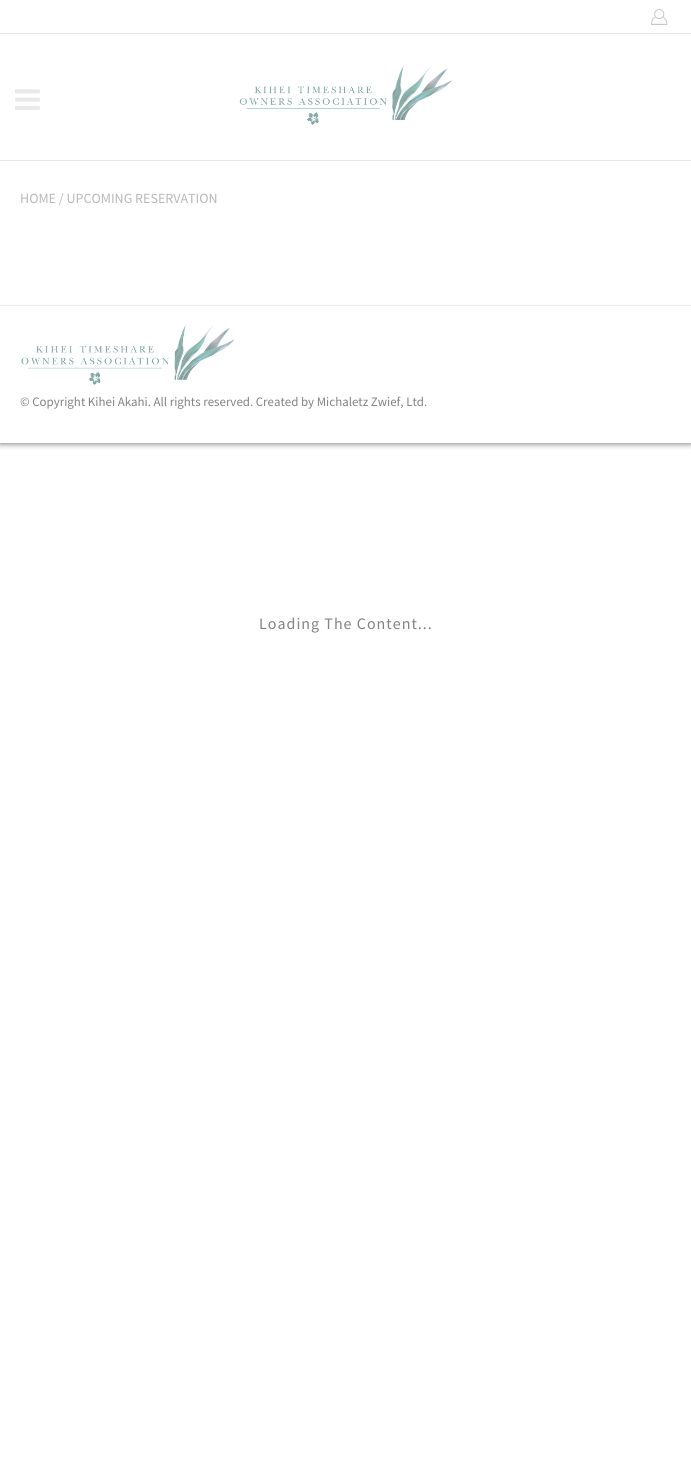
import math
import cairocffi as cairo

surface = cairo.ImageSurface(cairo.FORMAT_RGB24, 691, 1471)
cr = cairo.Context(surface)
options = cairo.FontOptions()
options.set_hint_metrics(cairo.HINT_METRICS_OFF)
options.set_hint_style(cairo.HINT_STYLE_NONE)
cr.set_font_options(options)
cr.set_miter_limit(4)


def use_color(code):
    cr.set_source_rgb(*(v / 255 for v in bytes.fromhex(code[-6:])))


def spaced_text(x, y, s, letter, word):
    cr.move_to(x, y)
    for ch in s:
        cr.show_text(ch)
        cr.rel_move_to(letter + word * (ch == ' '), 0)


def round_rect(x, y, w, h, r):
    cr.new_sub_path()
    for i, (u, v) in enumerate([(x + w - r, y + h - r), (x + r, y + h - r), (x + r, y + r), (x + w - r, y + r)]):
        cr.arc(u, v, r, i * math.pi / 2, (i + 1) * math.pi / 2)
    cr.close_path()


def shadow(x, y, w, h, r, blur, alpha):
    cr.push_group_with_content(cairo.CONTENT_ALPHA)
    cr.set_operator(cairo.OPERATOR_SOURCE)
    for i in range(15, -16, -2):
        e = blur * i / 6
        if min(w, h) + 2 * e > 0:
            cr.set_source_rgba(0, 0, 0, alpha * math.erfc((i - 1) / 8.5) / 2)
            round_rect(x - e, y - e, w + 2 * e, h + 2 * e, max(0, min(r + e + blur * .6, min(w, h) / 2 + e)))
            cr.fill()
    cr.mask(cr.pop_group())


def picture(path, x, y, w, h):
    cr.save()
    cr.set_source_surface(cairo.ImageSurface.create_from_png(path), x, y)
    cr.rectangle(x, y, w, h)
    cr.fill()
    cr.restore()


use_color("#ffffff")
cr.paint()
cr.save()
cr.rectangle(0, 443, 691, 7)
cr.clip()
use_color("#828282")
shadow(0, 1, 691, 443, 0, 3, 1)
cr.restore()
use_color("#e8e8e8")
cr.rectangle(0, 33, 691, 1)
cr.fill()
picture("img1.png", 651, 9, 17, 16)
cr.rectangle(0, 160, 691, 1)
cr.fill()
picture("img2.png", 15, 89, 25, 21)
picture("img3.png", 239, 65, 213, 60)
cr.select_font_face("Source Sans Pro")
cr.set_font_size(14)
use_color("#b8b8b8")
cr.move_to(20, 203)
cr.show_text("HOME / UPCOMING RESERVATION")
use_color("#ededed")
cr.rectangle(0, 305, 691, 1)
cr.fill()
picture("img4.png", 21, 324, 214, 61)
cr.set_font_size(12.9)
use_color("#828282")
cr.move_to(20, 406)
cr.show_text("© Copyright Kihei Akahi. All rights reserved. Created by Michaletz Zwief, Ltd.")
cr.set_font_size(16)
spaced_text(259, 629, "Loading The Content...", 1, 0)
surface.write_to_png("result.png")
